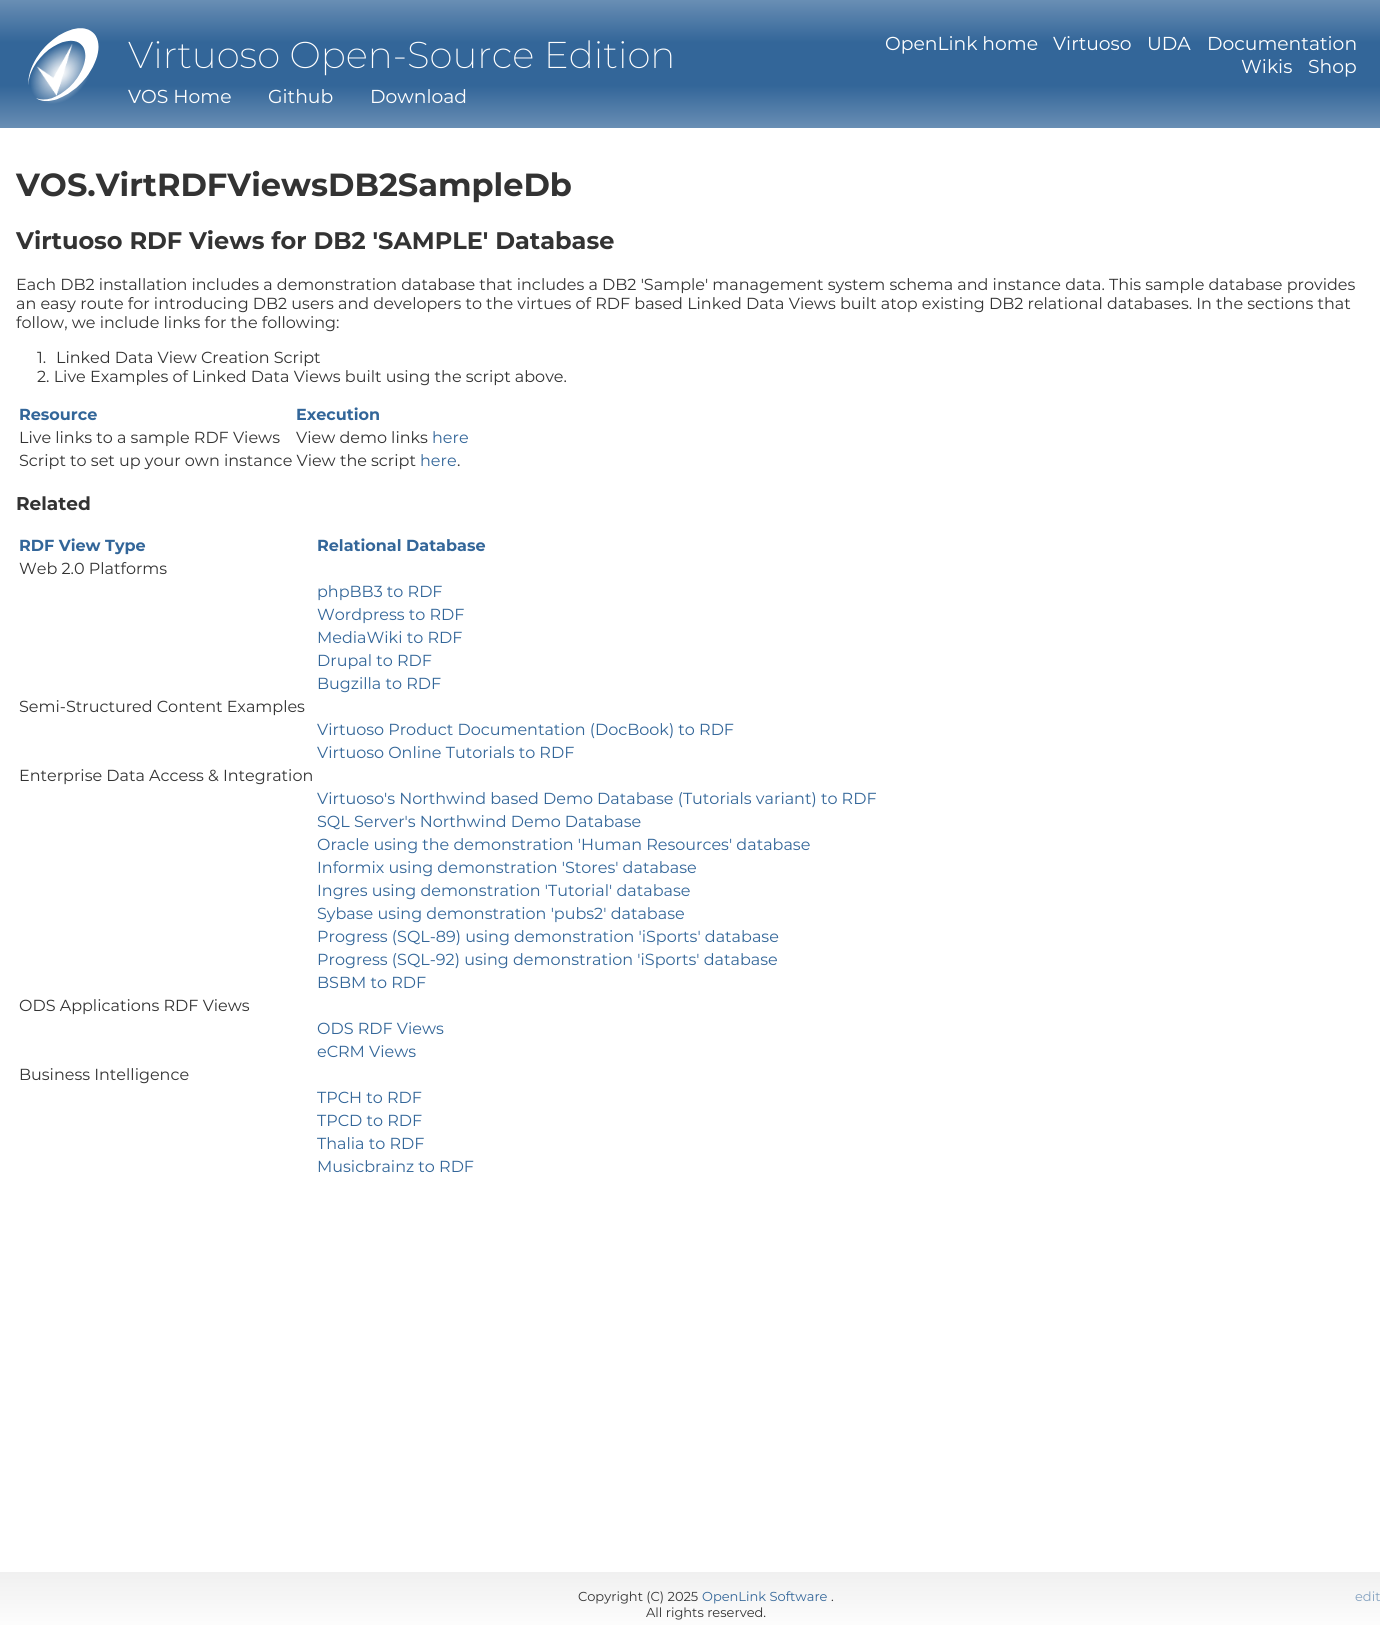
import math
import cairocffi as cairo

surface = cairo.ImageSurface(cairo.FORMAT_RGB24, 1380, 1636)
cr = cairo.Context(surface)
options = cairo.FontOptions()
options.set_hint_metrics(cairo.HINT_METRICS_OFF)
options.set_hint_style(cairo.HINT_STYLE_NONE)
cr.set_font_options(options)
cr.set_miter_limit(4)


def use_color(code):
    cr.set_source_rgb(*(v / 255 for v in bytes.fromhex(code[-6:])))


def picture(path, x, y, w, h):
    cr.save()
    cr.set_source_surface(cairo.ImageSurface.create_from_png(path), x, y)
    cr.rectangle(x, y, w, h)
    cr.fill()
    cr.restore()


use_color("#ffffff")
cr.paint()
gradient = cairo.LinearGradient(706, 0, 706, 128)
gradient.add_color_stop_rgba(0, 0.412, 0.557, 0.706, 1)
gradient.add_color_stop_rgba(0.33, 0.2, 0.4, 0.6, 1)
gradient.add_color_stop_rgba(0.67, 0.2, 0.4, 0.6, 1)
gradient.add_color_stop_rgba(1, 0.412, 0.557, 0.706, 1)
cr.set_source(gradient)
cr.rectangle(0, 0, 1380, 128)
cr.fill()
picture("img1.png", 28, 28, 71, 76)
cr.select_font_face("Montserrat ExtraLight")
cr.set_font_size(37.3)
use_color("#ffffff")
cr.move_to(128, 68)
cr.show_text("Virtuoso Open-Source Edition")
cr.select_font_face("Montserrat")
cr.set_font_size(18.75)
cr.move_to(128, 103)
cr.show_text("VOS Home")
cr.move_to(268, 103)
cr.show_text("Github")
cr.move_to(370, 103)
cr.show_text("Download")
cr.move_to(885, 50)
cr.show_text("OpenLink home")
cr.move_to(1053, 50)
cr.show_text("Virtuoso")
cr.move_to(1147, 50)
cr.show_text("UDA")
cr.move_to(1207, 50)
cr.show_text("Documentation")
cr.move_to(1241, 73)
cr.show_text("Wikis")
cr.move_to(1308, 73)
cr.show_text("Shop")
cr.select_font_face("Montserrat", cairo.FONT_SLANT_NORMAL, cairo.FONT_WEIGHT_BOLD)
cr.set_font_size(32)
use_color("#333333")
cr.move_to(16, 196)
cr.show_text("VOS.VirtRDFViewsDB2SampleDb")
cr.set_font_size(24)
cr.move_to(16, 249)
cr.show_text("Virtuoso RDF Views for DB2 'SAMPLE' Database")
cr.select_font_face("Montserrat")
cr.set_font_size(16)
cr.move_to(16, 290)
cr.show_text("Each DB2 installation includes a demonstration database that includes a DB2 'Sample' management system schema and instance data. This sample database provides")
cr.move_to(16, 309)
cr.show_text("an easy route for introducing DB2 users and developers to the virtues of RDF based Linked Data Views built atop existing DB2 relational databases. In the sections that")
cr.move_to(16, 328)
cr.show_text("follow, we include links for the following:")
cr.move_to(37, 363)
cr.show_text("1.")
cr.move_to(56, 363)
cr.show_text("Linked Data View Creation Script")
cr.move_to(37, 382)
cr.show_text("2. Live Examples of Linked Data Views built using the script above.")
cr.select_font_face("Montserrat", cairo.FONT_SLANT_NORMAL, cairo.FONT_WEIGHT_BOLD)
use_color("#336699")
cr.move_to(19, 420)
cr.show_text("Resource")
cr.move_to(296, 420)
cr.show_text("Execution")
cr.select_font_face("Montserrat")
use_color("#333333")
cr.move_to(19, 443)
cr.show_text("Live links to a sample RDF Views")
cr.move_to(296, 443)
cr.show_text("View demo links")
use_color("#336699")
cr.move_to(432, 443)
cr.show_text("here")
use_color("#333333")
cr.move_to(19, 466)
cr.show_text("Script to set up your own instance View the script")
use_color("#336699")
cr.move_to(420, 466)
cr.show_text("here")
use_color("#333333")
cr.move_to(457, 466)
cr.show_text(".")
cr.select_font_face("Montserrat", cairo.FONT_SLANT_NORMAL, cairo.FONT_WEIGHT_BOLD)
cr.set_font_size(18.5)
cr.move_to(16, 510)
cr.show_text("Related")
cr.set_font_size(16)
use_color("#336699")
cr.move_to(19, 551)
cr.show_text("RDF View Type")
cr.move_to(317, 551)
cr.show_text("Relational Database")
cr.select_font_face("Montserrat")
use_color("#333333")
cr.move_to(19, 574)
cr.show_text("Web 2.0 Platforms")
use_color("#336699")
cr.move_to(317, 597)
cr.show_text("phpBB3 to RDF")
cr.move_to(317, 620)
cr.show_text("Wordpress to RDF")
cr.move_to(317, 643)
cr.show_text("MediaWiki to RDF")
cr.move_to(317, 666)
cr.show_text("Drupal to RDF")
cr.move_to(317, 689)
cr.show_text("Bugzilla to RDF")
use_color("#333333")
cr.move_to(19, 712)
cr.show_text("Semi-Structured Content Examples")
use_color("#336699")
cr.move_to(317, 735)
cr.show_text("Virtuoso Product Documentation (DocBook) to RDF")
cr.move_to(317, 758)
cr.show_text("Virtuoso Online Tutorials to RDF")
use_color("#333333")
cr.move_to(19, 781)
cr.show_text("Enterprise Data Access & Integration")
use_color("#336699")
cr.move_to(317, 804)
cr.show_text("Virtuoso's Northwind based Demo Database (Tutorials variant) to RDF")
cr.move_to(317, 827)
cr.show_text("SQL Server's Northwind Demo Database")
cr.move_to(317, 850)
cr.show_text("Oracle using the demonstration 'Human Resources' database")
cr.move_to(317, 873)
cr.show_text("Informix using demonstration 'Stores' database")
cr.move_to(317, 896)
cr.show_text("Ingres using demonstration 'Tutorial' database")
cr.move_to(317, 919)
cr.show_text("Sybase using demonstration 'pubs2' database")
cr.move_to(317, 942)
cr.show_text("Progress (SQL-89) using demonstration 'iSports' database")
cr.move_to(317, 965)
cr.show_text("Progress (SQL-92) using demonstration 'iSports' database")
cr.move_to(317, 988)
cr.show_text("BSBM to RDF")
use_color("#333333")
cr.move_to(19, 1011)
cr.show_text("ODS Applications RDF Views")
use_color("#336699")
cr.move_to(317, 1034)
cr.show_text("ODS RDF Views")
cr.move_to(317, 1057)
cr.show_text("eCRM Views")
use_color("#333333")
cr.move_to(19, 1080)
cr.show_text("Business Intelligence")
use_color("#336699")
cr.move_to(317, 1103)
cr.show_text("TPCH to RDF")
cr.move_to(317, 1126)
cr.show_text("TPCD to RDF")
cr.move_to(317, 1149)
cr.show_text("Thalia to RDF")
cr.move_to(317, 1172)
cr.show_text("Musicbrainz to RDF")
gradient = cairo.LinearGradient(706, 1572, 706, 1636)
gradient.add_color_stop_rgba(0, 0.941, 0.941, 0.941, 1)
gradient.add_color_stop_rgba(1, 1, 1, 1, 1)
cr.set_source(gradient)
cr.rectangle(0, 1572, 1380, 53)
cr.fill()
cr.set_font_size(13)
use_color("#333333")
cr.move_to(578, 1601)
cr.show_text("Copyright (C) 2025")
use_color("#336699")
cr.move_to(702, 1601)
cr.show_text("OpenLink Software")
use_color("#333333")
cr.move_to(831, 1601)
cr.show_text(".")
use_color("#85a2c0")
cr.move_to(1355, 1601)
cr.show_text("edit")
use_color("#333333")
cr.move_to(646, 1617)
cr.show_text("All rights reserved.")
surface.write_to_png("result.png")
